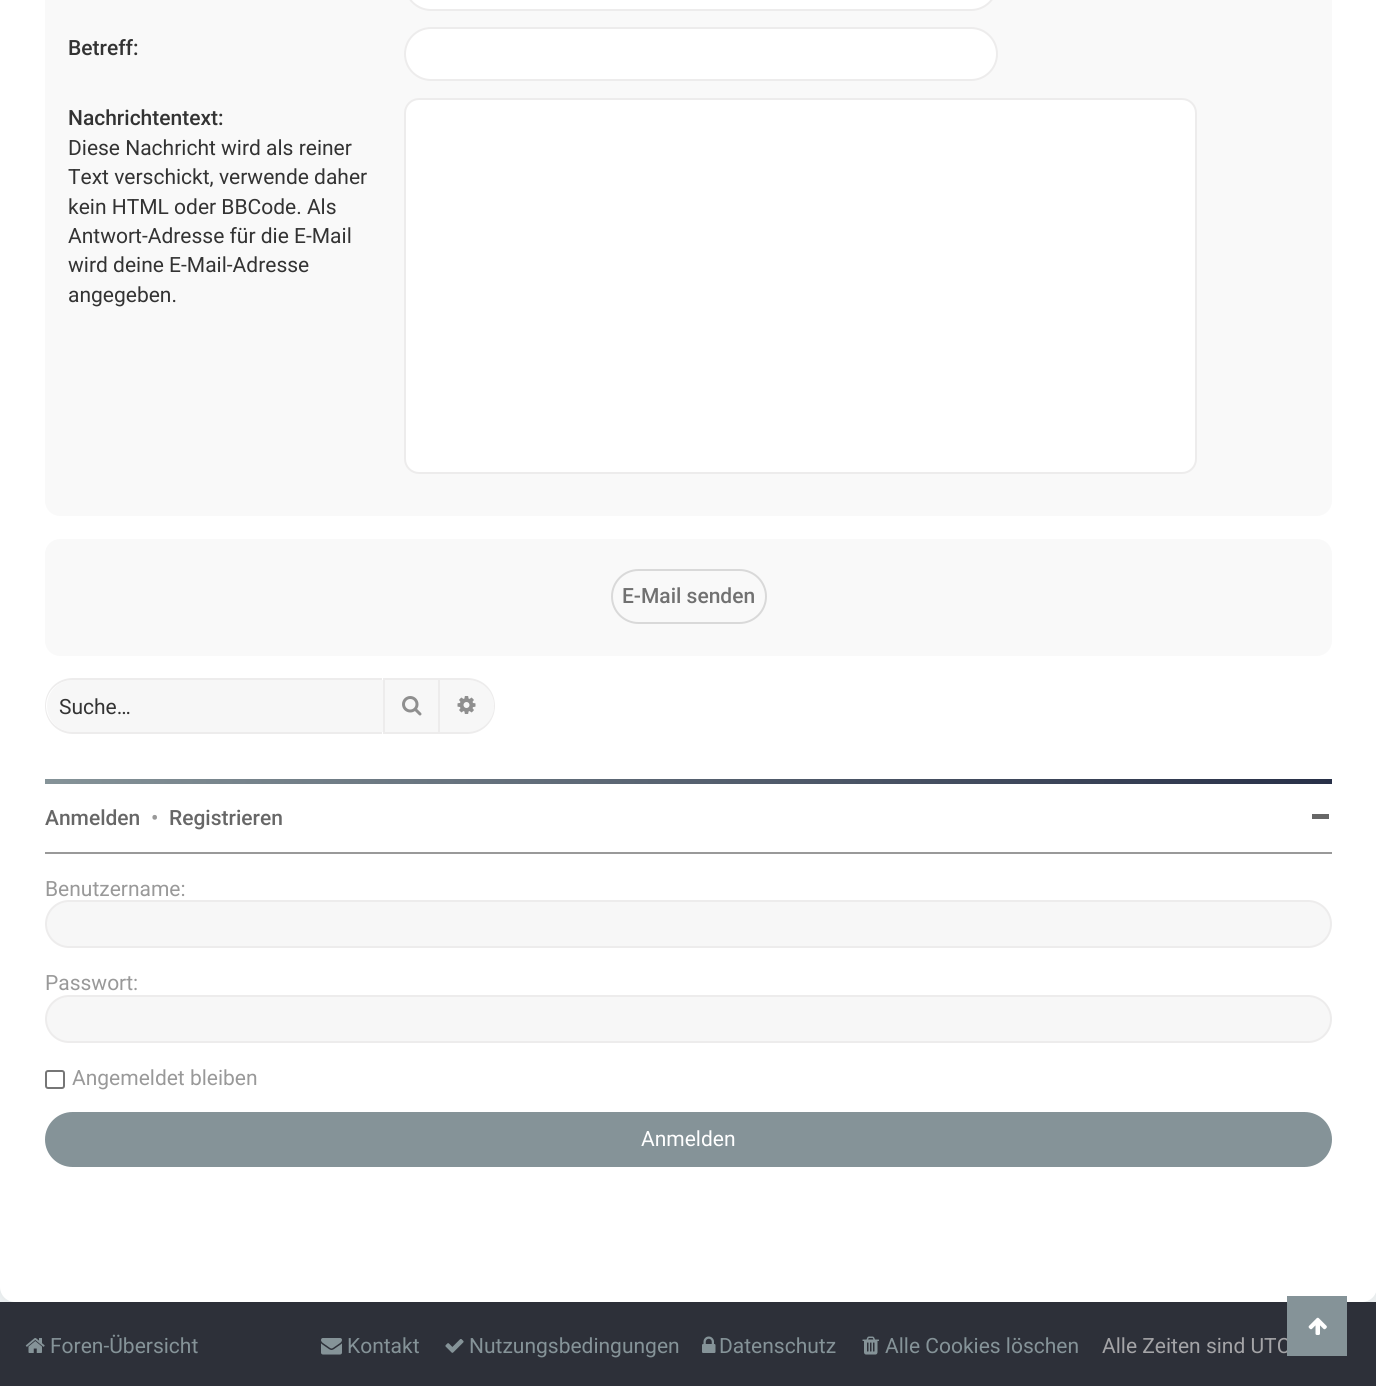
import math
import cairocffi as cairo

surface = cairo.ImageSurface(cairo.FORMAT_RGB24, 1376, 1386)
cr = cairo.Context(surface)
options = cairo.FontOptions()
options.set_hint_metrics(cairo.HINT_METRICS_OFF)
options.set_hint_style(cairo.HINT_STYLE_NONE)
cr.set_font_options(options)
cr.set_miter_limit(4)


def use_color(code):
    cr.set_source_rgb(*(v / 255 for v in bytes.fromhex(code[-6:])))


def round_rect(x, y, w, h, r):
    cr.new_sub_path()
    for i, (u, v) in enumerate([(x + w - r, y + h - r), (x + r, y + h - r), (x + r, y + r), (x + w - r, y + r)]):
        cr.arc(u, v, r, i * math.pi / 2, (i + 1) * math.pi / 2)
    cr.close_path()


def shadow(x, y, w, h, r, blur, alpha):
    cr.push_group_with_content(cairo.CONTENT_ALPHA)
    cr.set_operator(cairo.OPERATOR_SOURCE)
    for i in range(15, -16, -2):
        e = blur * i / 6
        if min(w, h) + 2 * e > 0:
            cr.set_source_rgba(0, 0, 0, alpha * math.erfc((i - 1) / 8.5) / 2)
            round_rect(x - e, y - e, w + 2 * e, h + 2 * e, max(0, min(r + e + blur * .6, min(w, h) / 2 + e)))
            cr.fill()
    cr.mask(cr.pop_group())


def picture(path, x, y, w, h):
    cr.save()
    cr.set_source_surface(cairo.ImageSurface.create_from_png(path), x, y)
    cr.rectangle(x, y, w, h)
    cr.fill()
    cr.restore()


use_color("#ecf0f1")
cr.paint()
use_color("#2d3039")
cr.rectangle(0, 1302, 1376, 84)
cr.fill()
use_color("#000000")
shadow(0, -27, 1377, 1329, 15, 4, 0.05)
use_color("#ffffff")
round_rect(0, -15, 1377, 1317, 15)
cr.fill()
use_color("#f9f9f9")
round_rect(45, -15, 1287, 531, 15)
cr.fill()
use_color("#ffffff")
round_rect(405, -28, 592, 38, 26)
cr.fill_preserve()
use_color("#edecec")
cr.stroke()
cr.select_font_face("Roboto Medium")
cr.set_font_size(21)
use_color("#333333")
cr.move_to(68, 55)
cr.show_text("Betreff:")
use_color("#ffffff")
round_rect(405, 28, 592, 52, 26)
cr.fill_preserve()
use_color("#edecec")
cr.stroke()
use_color("#333333")
cr.move_to(68, 125)
cr.show_text("Nachrichtentext:")
cr.select_font_face("Roboto")
cr.move_to(68, 155)
cr.show_text("Diese Nachricht wird als reiner")
cr.move_to(68, 184)
cr.show_text("Text verschickt, verwende daher")
cr.move_to(68, 214)
cr.show_text("kein HTML oder BBCode. Als")
cr.move_to(68, 243)
cr.show_text("Antwort-Adresse für die E-Mail")
cr.move_to(68, 272)
cr.show_text("wird deine E-Mail-Adresse")
cr.move_to(68, 302)
cr.show_text("angegeben.")
use_color("#ffffff")
round_rect(405, 99, 791, 374, 14)
cr.fill_preserve()
use_color("#edecec")
cr.stroke()
use_color("#f9f9f9")
round_rect(45, 539, 1287, 117, 15)
cr.fill()
round_rect(612, 570, 154, 53, 26.5)
use_color("#d9d9d9")
cr.stroke()
cr.select_font_face("Roboto Medium")
use_color("#717171")
cr.move_to(622, 603)
cr.show_text("E-Mail senden")
use_color("#f7f7f7")
cr.new_path()
cr.move_to(73, 680)
cr.line_to(383, 680)
cr.line_to(383, 732)
cr.line_to(73, 732)
cr.curve_to(58.5, 732, 47, 720.5, 47, 706)
cr.curve_to(47, 691.5, 58.5, 680, 73, 680)
cr.close_path()
cr.fill()
use_color("#edecec")
cr.set_fill_rule(cairo.FILL_RULE_EVEN_ODD)
cr.new_path()
cr.move_to(73, 678)
cr.line_to(382, 678)
cr.line_to(382, 734)
cr.line_to(73, 734)
cr.curve_to(57, 734, 45, 721, 45, 706)
cr.curve_to(45, 690, 57, 678, 73, 678)
cr.close_path()
cr.move_to(73, 680)
cr.line_to(382, 680)
cr.line_to(382, 732)
cr.line_to(73, 732)
cr.curve_to(58, 732, 46, 720, 46, 706)
cr.curve_to(46, 691, 58, 680, 73, 680)
cr.close_path()
cr.fill()
cr.select_font_face("Roboto")
use_color("#333333")
cr.move_to(59, 714)
cr.show_text("Suche…")
use_color("#f7f7f7")
cr.rectangle(384, 679, 55, 54)
cr.fill_preserve()
use_color("#edecec")
cr.stroke()
picture("img1.png", 402, 696, 20, 20)
use_color("#f7f7f7")
cr.new_path()
cr.move_to(440, 680)
cr.line_to(468, 680)
cr.curve_to(482.5, 680, 494, 691.5, 494, 706)
cr.curve_to(494, 720.5, 482.5, 732, 468, 732)
cr.line_to(440, 732)
cr.close_path()
cr.fill()
use_color("#edecec")
cr.new_path()
cr.move_to(440, 678)
cr.line_to(467, 678)
cr.curve_to(483, 678, 495, 690, 495, 706)
cr.curve_to(495, 721, 483, 734, 467, 734)
cr.line_to(440, 734)
cr.close_path()
cr.move_to(440, 680)
cr.line_to(467, 680)
cr.curve_to(482, 680, 494, 691, 494, 706)
cr.curve_to(494, 720, 482, 732, 467, 732)
cr.line_to(440, 732)
cr.close_path()
cr.fill()
picture("img2.png", 457, 696, 19, 18)
gradient = cairo.LinearGradient(45, 781, 1332, 781)
gradient.add_color_stop_rgba(0, 0.522, 0.576, 0.596, 1)
gradient.add_color_stop_rgba(1, 0.157, 0.188, 0.282, 1)
cr.set_source(gradient)
cr.rectangle(45, 779, 1287, 5)
cr.fill()
cr.select_font_face("Roboto Medium")
use_color("#676767")
cr.move_to(45, 825)
cr.show_text("Anmelden")
use_color("#999999")
cr.move_to(151, 825)
cr.show_text("•")
use_color("#676767")
cr.move_to(169, 825)
cr.show_text("Registrieren")
cr.rectangle(1312, 814, 17, 5)
cr.fill()
use_color("#999999")
cr.rectangle(45, 852, 1287, 2)
cr.fill()
cr.select_font_face("Roboto")
cr.move_to(45, 896)
cr.show_text("Benutzername:")
use_color("#f7f7f7")
round_rect(46, 901, 1285, 46, 23)
cr.fill_preserve()
use_color("#edecec")
cr.stroke()
use_color("#999999")
cr.move_to(45, 990)
cr.show_text("Passwort:")
use_color("#f7f7f7")
round_rect(46, 996, 1285, 46, 23)
cr.fill_preserve()
use_color("#edecec")
cr.stroke()
round_rect(46, 1071, 18, 17, 2)
use_color("#767676")
cr.stroke()
use_color("#999999")
cr.move_to(72, 1085)
cr.show_text("Angemeldet bleiben")
use_color("#859398")
round_rect(46, 1113, 1285, 53, 26.5)
cr.fill_preserve()
cr.stroke()
use_color("#ffffff")
cr.move_to(641, 1146)
cr.show_text("Anmelden")
picture("img3.png", 25, 1338, 20, 15)
use_color("#859398")
cr.move_to(50, 1353)
cr.show_text("Foren-Übersicht")
picture("img4.png", 321, 1338, 21, 17)
cr.move_to(347, 1353)
cr.show_text("Kontakt")
picture("img5.png", 445, 1339, 19, 14)
cr.move_to(469, 1353)
cr.show_text("Nutzungsbedingungen")
picture("img6.png", 702, 1336, 14, 17)
cr.move_to(719, 1353)
cr.show_text("Datenschutz")
picture("img7.png", 862, 1336, 17, 19)
cr.move_to(885, 1353)
cr.show_text("Alle Cookies löschen")
use_color("#a4a4a7")
cr.move_to(1102, 1353)
cr.show_text("Alle Zeiten sind UTC")
use_color("#859398")
cr.rectangle(1287, 1296, 60, 60)
cr.fill()
picture("img8.png", 1308, 1317, 19, 18)
surface.write_to_png("result.png")
